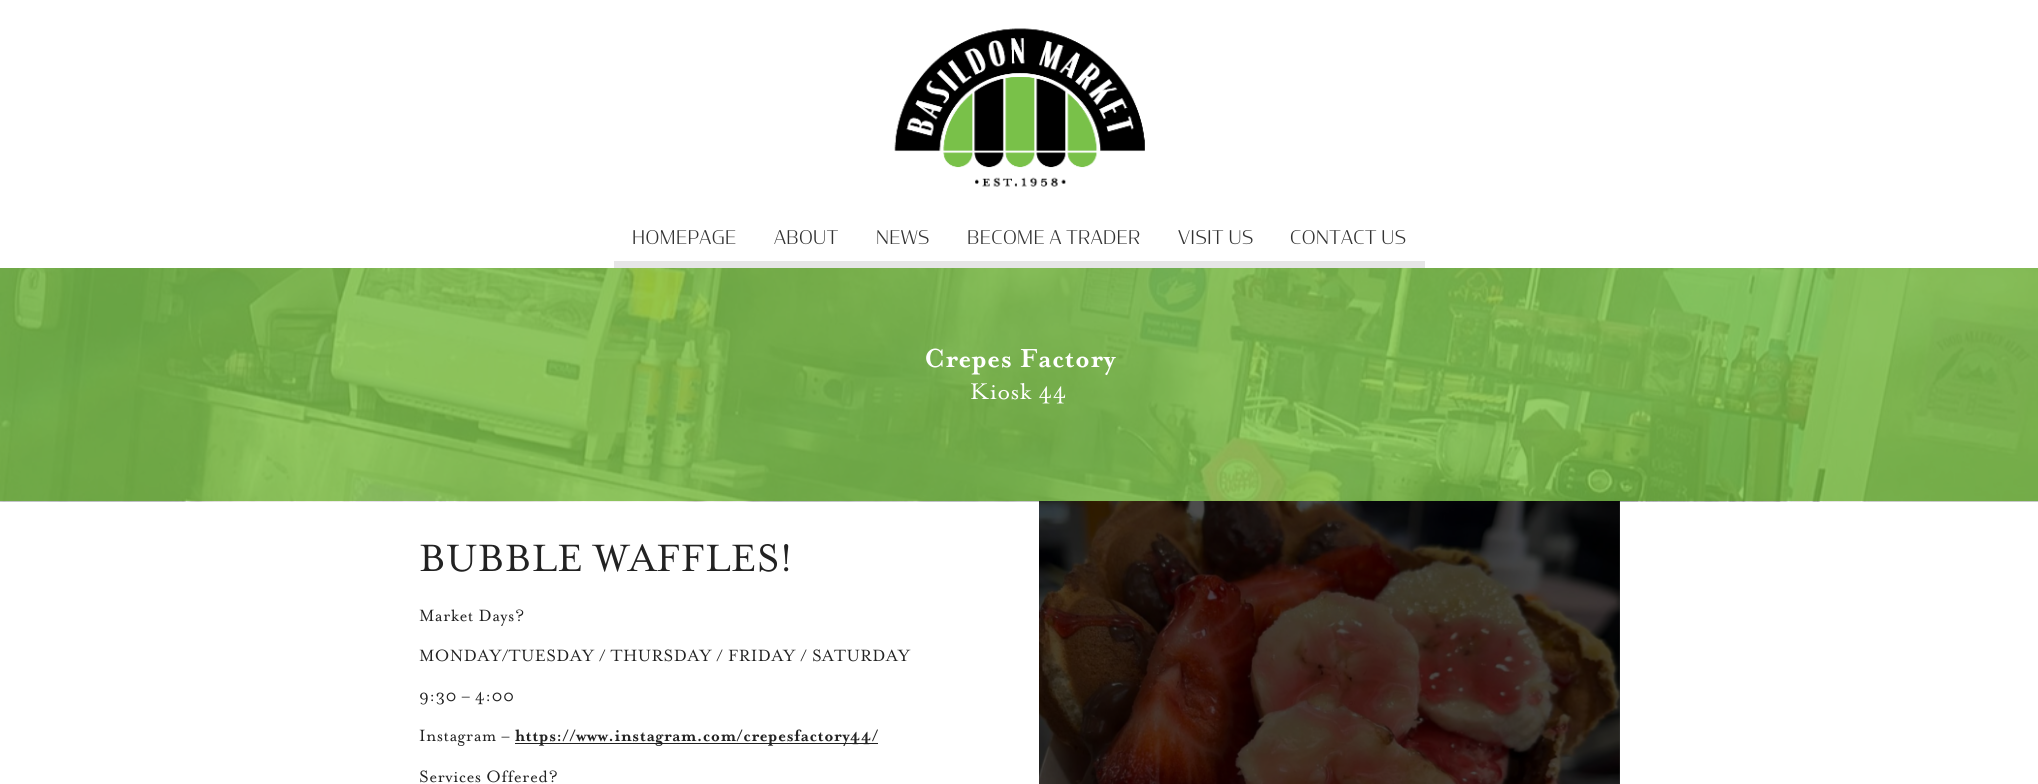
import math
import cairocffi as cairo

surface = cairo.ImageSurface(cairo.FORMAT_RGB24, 2038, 784)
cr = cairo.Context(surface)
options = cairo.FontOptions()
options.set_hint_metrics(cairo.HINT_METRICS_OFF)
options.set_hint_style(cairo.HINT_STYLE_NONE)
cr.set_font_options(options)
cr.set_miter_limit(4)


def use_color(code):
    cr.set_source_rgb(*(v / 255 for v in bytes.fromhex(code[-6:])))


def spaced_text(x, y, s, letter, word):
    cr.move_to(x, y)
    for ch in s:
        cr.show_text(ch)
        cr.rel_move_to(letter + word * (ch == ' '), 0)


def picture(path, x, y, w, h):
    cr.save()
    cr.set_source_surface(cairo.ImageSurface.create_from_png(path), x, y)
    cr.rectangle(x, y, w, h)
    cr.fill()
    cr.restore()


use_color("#ffffff")
cr.paint()
picture("img1.png", 894, 28, 251, 159)
use_color("#e6e6e6")
cr.rectangle(614, 261, 811, 7)
cr.fill()
cr.select_font_face("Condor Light")
cr.set_font_size(18.75)
use_color("#333333")
spaced_text(632, 244, "HOMEPAGE", 0.4, 0)
spaced_text(774, 244, "ABOUT", 0.4, 0)
spaced_text(876, 244, "NEWS", 0.4, 0)
spaced_text(967, 244, "BECOME A TRADER", 0.4, 0)
spaced_text(1178, 244, "VISIT US", 0.4, 0)
spaced_text(1290, 244, "CONTACT US", 0.4, 0)
picture("img2.png", 0, 268, 2038, 234)
cr.select_font_face("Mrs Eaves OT", cairo.FONT_SLANT_NORMAL, cairo.FONT_WEIGHT_BOLD)
cr.set_font_size(30)
use_color("#ffffff")
spaced_text(924, 367, "Crepes Factory", 0.4, 0)
cr.select_font_face("Mrs Eaves OT")
cr.set_font_size(26)
spaced_text(970, 399, "Kiosk 44", 0.4, 0)
cr.set_font_size(43.75)
use_color("#222222")
spaced_text(419, 571, "BUBBLE WAFFLES!", 0.4, 0)
cr.set_font_size(18.75)
spaced_text(419, 621, "Market Days?", 0.4, 0)
spaced_text(419, 661, "MONDAY/TUESDAY / THURSDAY / FRIDAY / SATURDAY", 0.4, 0)
spaced_text(419, 701, "9:30 – 4:00", 0.4, 0)
spaced_text(419, 741, "Instagram –", 0.4, 0)
cr.rectangle(515, 743, 363, 1)
cr.fill()
cr.select_font_face("Mrs Eaves OT", cairo.FONT_SLANT_NORMAL, cairo.FONT_WEIGHT_BOLD)
spaced_text(515, 741, "https://www.instagram.com/crepesfactory44/", 0.4, 0)
cr.select_font_face("Mrs Eaves OT")
spaced_text(419, 782, "Services Offered?", 0.4, 0)
picture("img3.png", 1039, 501, 581, 283)
cr.set_source_rgba(0, 0, 0, 0.7)
cr.rectangle(1039, 501, 581, 283)
cr.fill()
surface.write_to_png("result.png")
